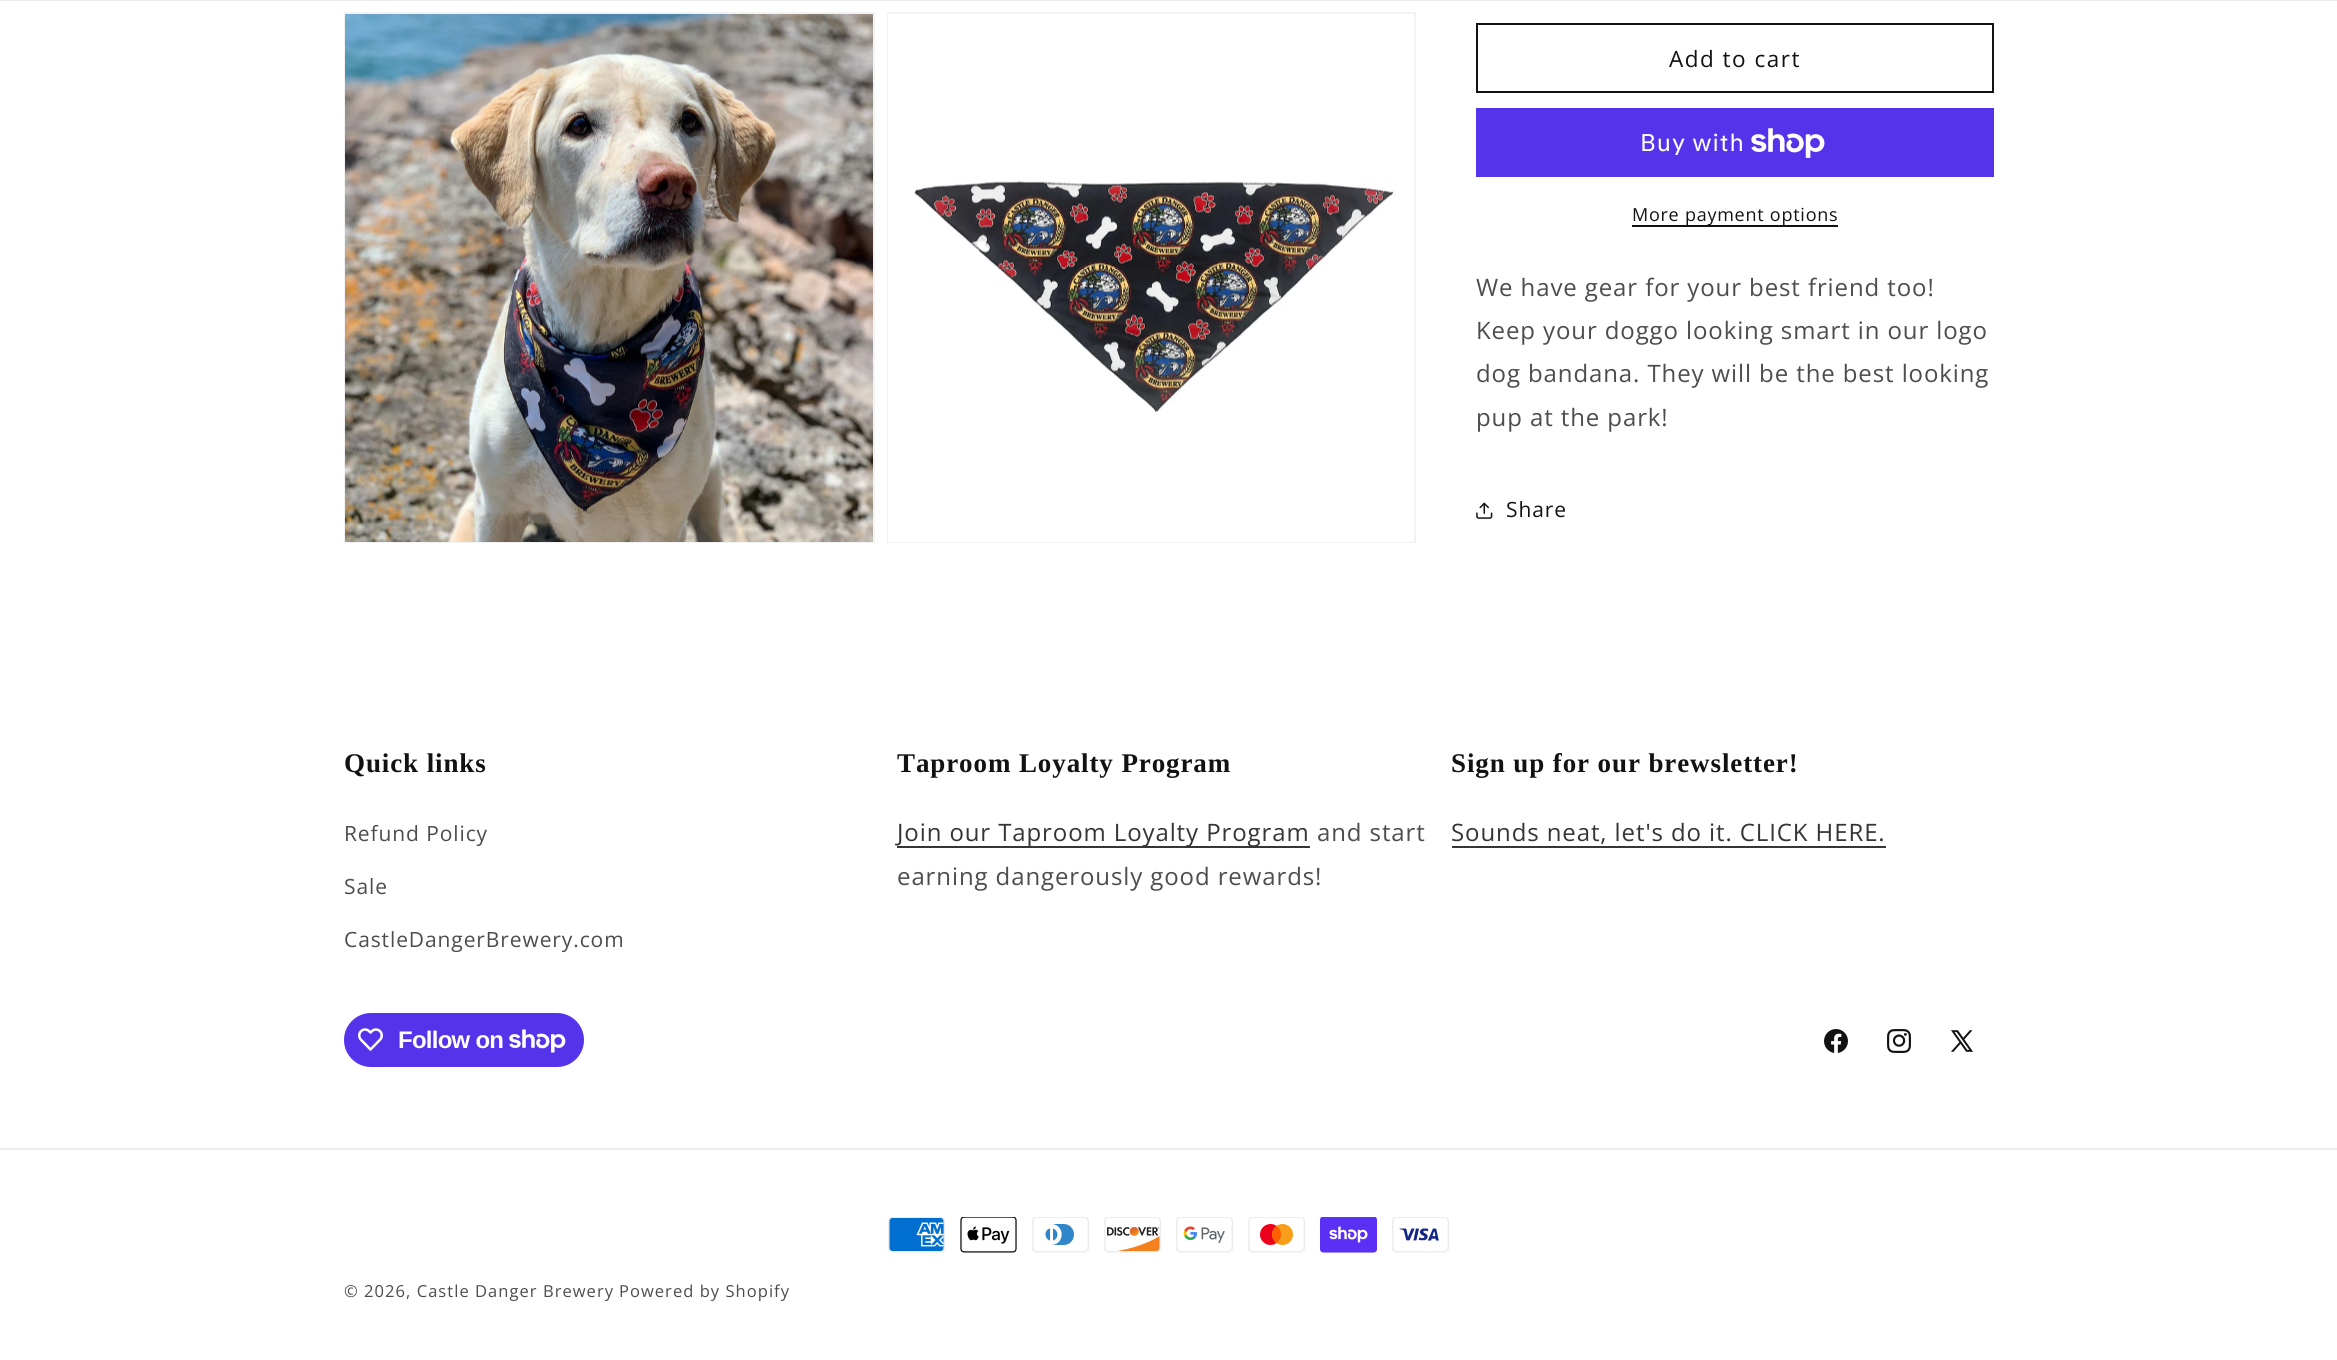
import math
import cairocffi as cairo

surface = cairo.ImageSurface(cairo.FORMAT_RGB24, 2337, 1360)
cr = cairo.Context(surface)
options = cairo.FontOptions()
options.set_hint_metrics(cairo.HINT_METRICS_OFF)
options.set_hint_style(cairo.HINT_STYLE_NONE)
cr.set_font_options(options)
cr.set_miter_limit(4)


def use_color(code):
    cr.set_source_rgb(*(v / 255 for v in bytes.fromhex(code[-6:])))


def spaced_text(x, y, s, letter, word):
    cr.move_to(x, y)
    for ch in s:
        cr.show_text(ch)
        cr.rel_move_to(letter + word * (ch == ' '), 0)


def round_rect(x, y, w, h, r):
    cr.new_sub_path()
    for i, (u, v) in enumerate([(x + w - r, y + h - r), (x + r, y + h - r), (x + r, y + r), (x + w - r, y + r)]):
        cr.arc(u, v, r, i * math.pi / 2, (i + 1) * math.pi / 2)
    cr.close_path()


def picture(path, x, y, w, h):
    cr.save()
    cr.set_source_surface(cairo.ImageSurface.create_from_png(path), x, y)
    cr.rectangle(x, y, w, h)
    cr.fill()
    cr.restore()


use_color("#ffffff")
cr.paint()
use_color("#ececec")
cr.rectangle(0, 0, 2337, 1)
cr.fill()
cr.rectangle(345, 13, 529, 529)
use_color("#f3f3f3")
cr.stroke()
picture("img1.png", 345, 14, 528, 528)
cr.rectangle(888, 13, 527, 529)
cr.stroke()
picture("img2.png", 888, 14, 526, 528)
cr.rectangle(1477, 24, 516, 68)
use_color("#121212")
cr.stroke()
cr.select_font_face("Open Sans")
cr.set_font_size(22.5)
spaced_text(1669, 67, "Add to cart", 1.5, 0)
use_color("#5433eb")
cr.rectangle(1476, 108, 518, 69)
cr.fill()
cr.select_font_face("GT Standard")
cr.set_font_size(24)
use_color("#ffffff")
spaced_text(1640, 151, "Buy with", 0.9, 0)
picture("img3.png", 1751, 128, 74, 30)
use_color("#121212")
cr.rectangle(1632, 225, 206, 2)
cr.fill()
cr.select_font_face("Open Sans")
cr.set_font_size(18)
spaced_text(1632, 221, "More payment options", 0.75, 0)
cr.set_font_size(24)
use_color("#4d4d4d")
spaced_text(1476, 296, "We have gear for your best friend too!", 0.9, 0)
spaced_text(1476, 339, "Keep your doggo looking smart in our logo", 0.9, 0)
spaced_text(1476, 382, "dog bandana. They will be the best looking", 0.9, 0)
spaced_text(1476, 426, "pup at the park!", 0.9, 0)
picture("img4.png", 1476, 502, 17, 17)
cr.set_font_size(21)
use_color("#121212")
spaced_text(1506, 517, "Share", 0.9, 0)
cr.select_font_face("Liberation Serif", cairo.FONT_SLANT_NORMAL, cairo.FONT_WEIGHT_BOLD)
cr.set_font_size(27)
spaced_text(344, 772, "Quick links", 0.9, 0)
cr.select_font_face("Open Sans")
cr.set_font_size(21)
use_color("#4d4d4d")
spaced_text(344, 841, "Refund Policy", 0.9, 0)
spaced_text(344, 894, "Sale", 0.9, 0)
spaced_text(344, 947, "CastleDangerBrewery.com", 0.9, 0)
cr.select_font_face("Liberation Serif", cairo.FONT_SLANT_NORMAL, cairo.FONT_WEIGHT_BOLD)
cr.set_font_size(27)
use_color("#121212")
spaced_text(897, 772, "Taproom Loyalty Program", 0.9, 0)
use_color("#363636")
cr.rectangle(897, 846, 413, 2)
cr.fill()
cr.select_font_face("Open Sans")
cr.set_font_size(24)
use_color("#353535")
spaced_text(897, 841, "Join our Taproom Loyalty Program", 0.9, 0)
use_color("#4d4d4d")
spaced_text(1317, 841, "and start", 0.9, 0)
spaced_text(897, 885, "earning dangerously good rewards!", 0.9, 0)
cr.select_font_face("Liberation Serif", cairo.FONT_SLANT_NORMAL, cairo.FONT_WEIGHT_BOLD)
cr.set_font_size(27)
use_color("#121212")
spaced_text(1451, 772, "Sign up for our brewsletter!", 0.9, 0)
cr.select_font_face("Open Sans")
cr.set_font_size(24)
use_color("#353535")
spaced_text(1451, 841, "Sounds neat, let's do it. CLICK HERE.", 0.9, 0)
use_color("#363636")
cr.rectangle(1452, 846, 434, 2)
cr.fill()
use_color("#5433eb")
round_rect(344, 1013, 240, 54, 27)
cr.fill()
picture("img5.png", 358, 1028, 25, 23)
cr.select_font_face("Liberation Sans", cairo.FONT_SLANT_NORMAL, cairo.FONT_WEIGHT_BOLD)
use_color("#ffffff")
spaced_text(398, 1048, "Follow on", -0.75, 0)
picture("img6.png", 509, 1029, 57, 24)
picture("img7.png", 1824, 1029, 24, 24)
picture("img8.png", 1887, 1029, 24, 24)
picture("img9.png", 1951, 1030, 22, 22)
use_color("#ececec")
cr.rectangle(0, 1148, 2337, 2)
cr.fill()
picture("img10.png", 888, 1217, 57, 36)
picture("img11.png", 960, 1217, 57, 36)
picture("img12.png", 1032, 1217, 57, 36)
picture("img13.png", 1104, 1217, 57, 36)
picture("img14.png", 1176, 1217, 57, 36)
picture("img15.png", 1248, 1217, 57, 36)
picture("img16.png", 1320, 1217, 57, 36)
picture("img17.png", 1392, 1217, 57, 36)
cr.select_font_face("Open Sans")
cr.set_font_size(16.5)
use_color("#4d4d4d")
spaced_text(344, 1297, "© 2026, Castle Danger Brewery", 1.05, 0)
spaced_text(619, 1297, "Powered by Shopify", 1.05, 0)
surface.write_to_png("result.png")
